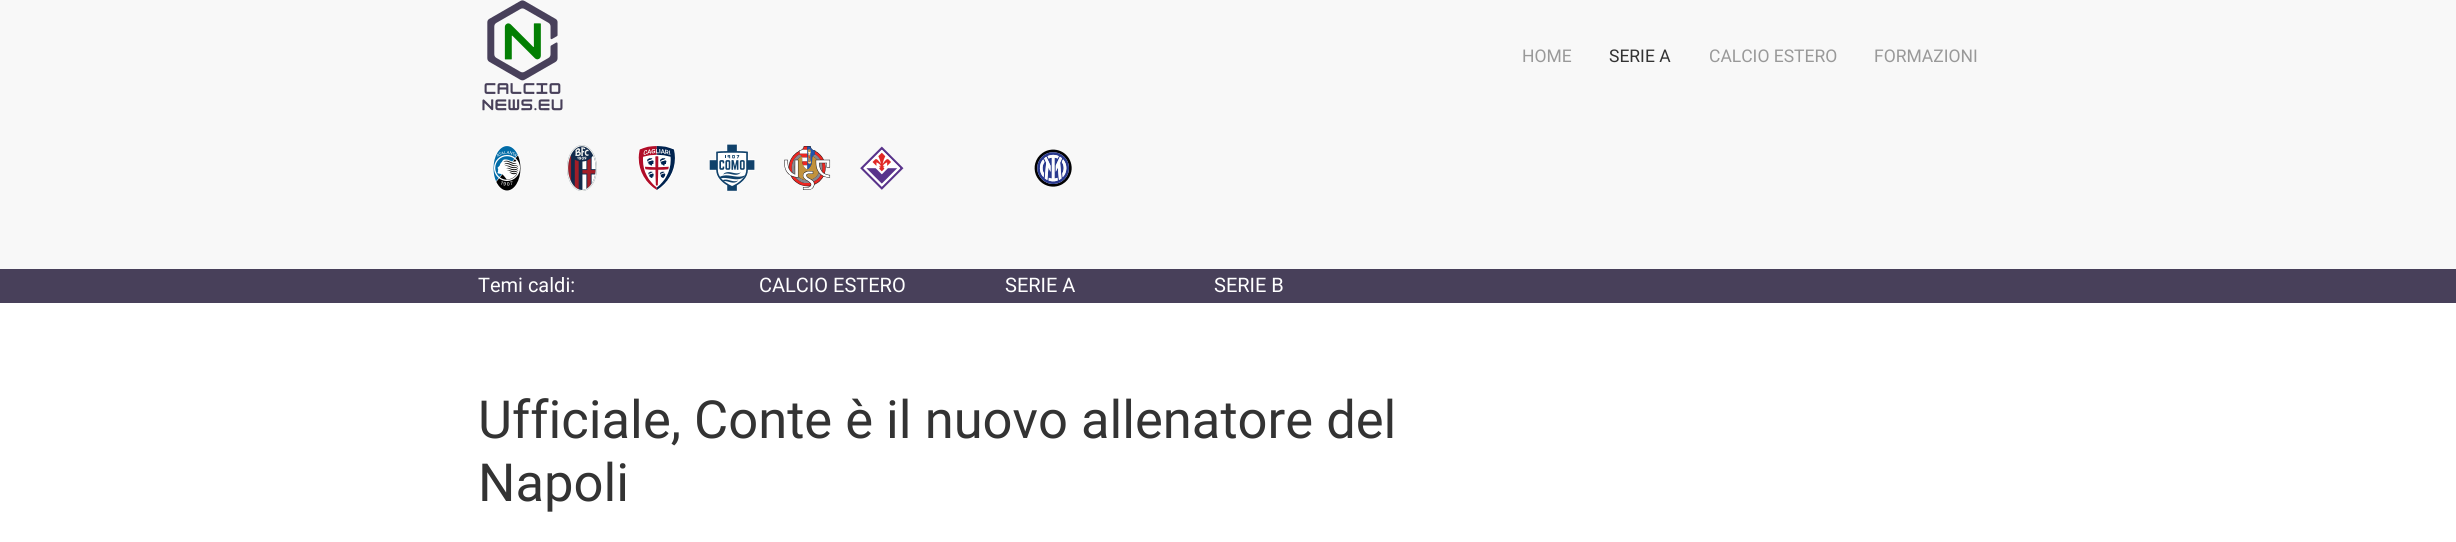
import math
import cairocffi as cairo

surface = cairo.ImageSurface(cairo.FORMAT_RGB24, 2456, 542)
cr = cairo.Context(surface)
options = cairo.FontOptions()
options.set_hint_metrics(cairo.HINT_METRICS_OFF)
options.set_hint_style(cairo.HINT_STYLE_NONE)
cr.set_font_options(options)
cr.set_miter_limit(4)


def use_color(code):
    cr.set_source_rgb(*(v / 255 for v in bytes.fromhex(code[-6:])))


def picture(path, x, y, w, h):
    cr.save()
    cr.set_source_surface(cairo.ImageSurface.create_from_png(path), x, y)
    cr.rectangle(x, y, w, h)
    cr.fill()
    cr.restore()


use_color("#ffffff")
cr.paint()
use_color("#f8f8f8")
cr.rectangle(0, 0, 2456, 269)
cr.fill()
picture("img1.png", 482, 0, 81, 111)
cr.select_font_face("Roboto")
cr.set_font_size(17.5)
use_color("#999999")
cr.move_to(1522, 62)
cr.show_text("HOME")
use_color("#333333")
cr.move_to(1609, 62)
cr.show_text("SERIE A")
use_color("#999999")
cr.move_to(1709, 62)
cr.show_text("CALCIO ESTERO")
cr.move_to(1874, 62)
cr.show_text("FORMAZIONI")
picture("img2.png", 493, 145, 28, 46)
picture("img3.png", 567, 145, 30, 46)
picture("img4.png", 638, 146, 37, 44)
picture("img5.png", 709, 144, 46, 47)
picture("img6.png", 784, 146, 47, 44)
picture("img7.png", 860, 146, 44, 44)
picture("img8.png", 1034, 149, 38, 38)
use_color("#48405a")
cr.rectangle(0, 269, 2456, 34)
cr.fill()
cr.set_font_size(20)
use_color("#ffffff")
cr.move_to(478, 292)
cr.show_text("Temi caldi:")
cr.move_to(759, 292)
cr.show_text("CALCIO ESTERO")
cr.move_to(1005, 292)
cr.show_text("SERIE A")
cr.move_to(1214, 292)
cr.show_text("SERIE B")
cr.set_font_size(52.5)
use_color("#333333")
cr.move_to(478, 438)
cr.show_text("Ufficiale, Conte è il nuovo allenatore del")
cr.move_to(478, 501)
cr.show_text("Napoli")
surface.write_to_png("result.png")
